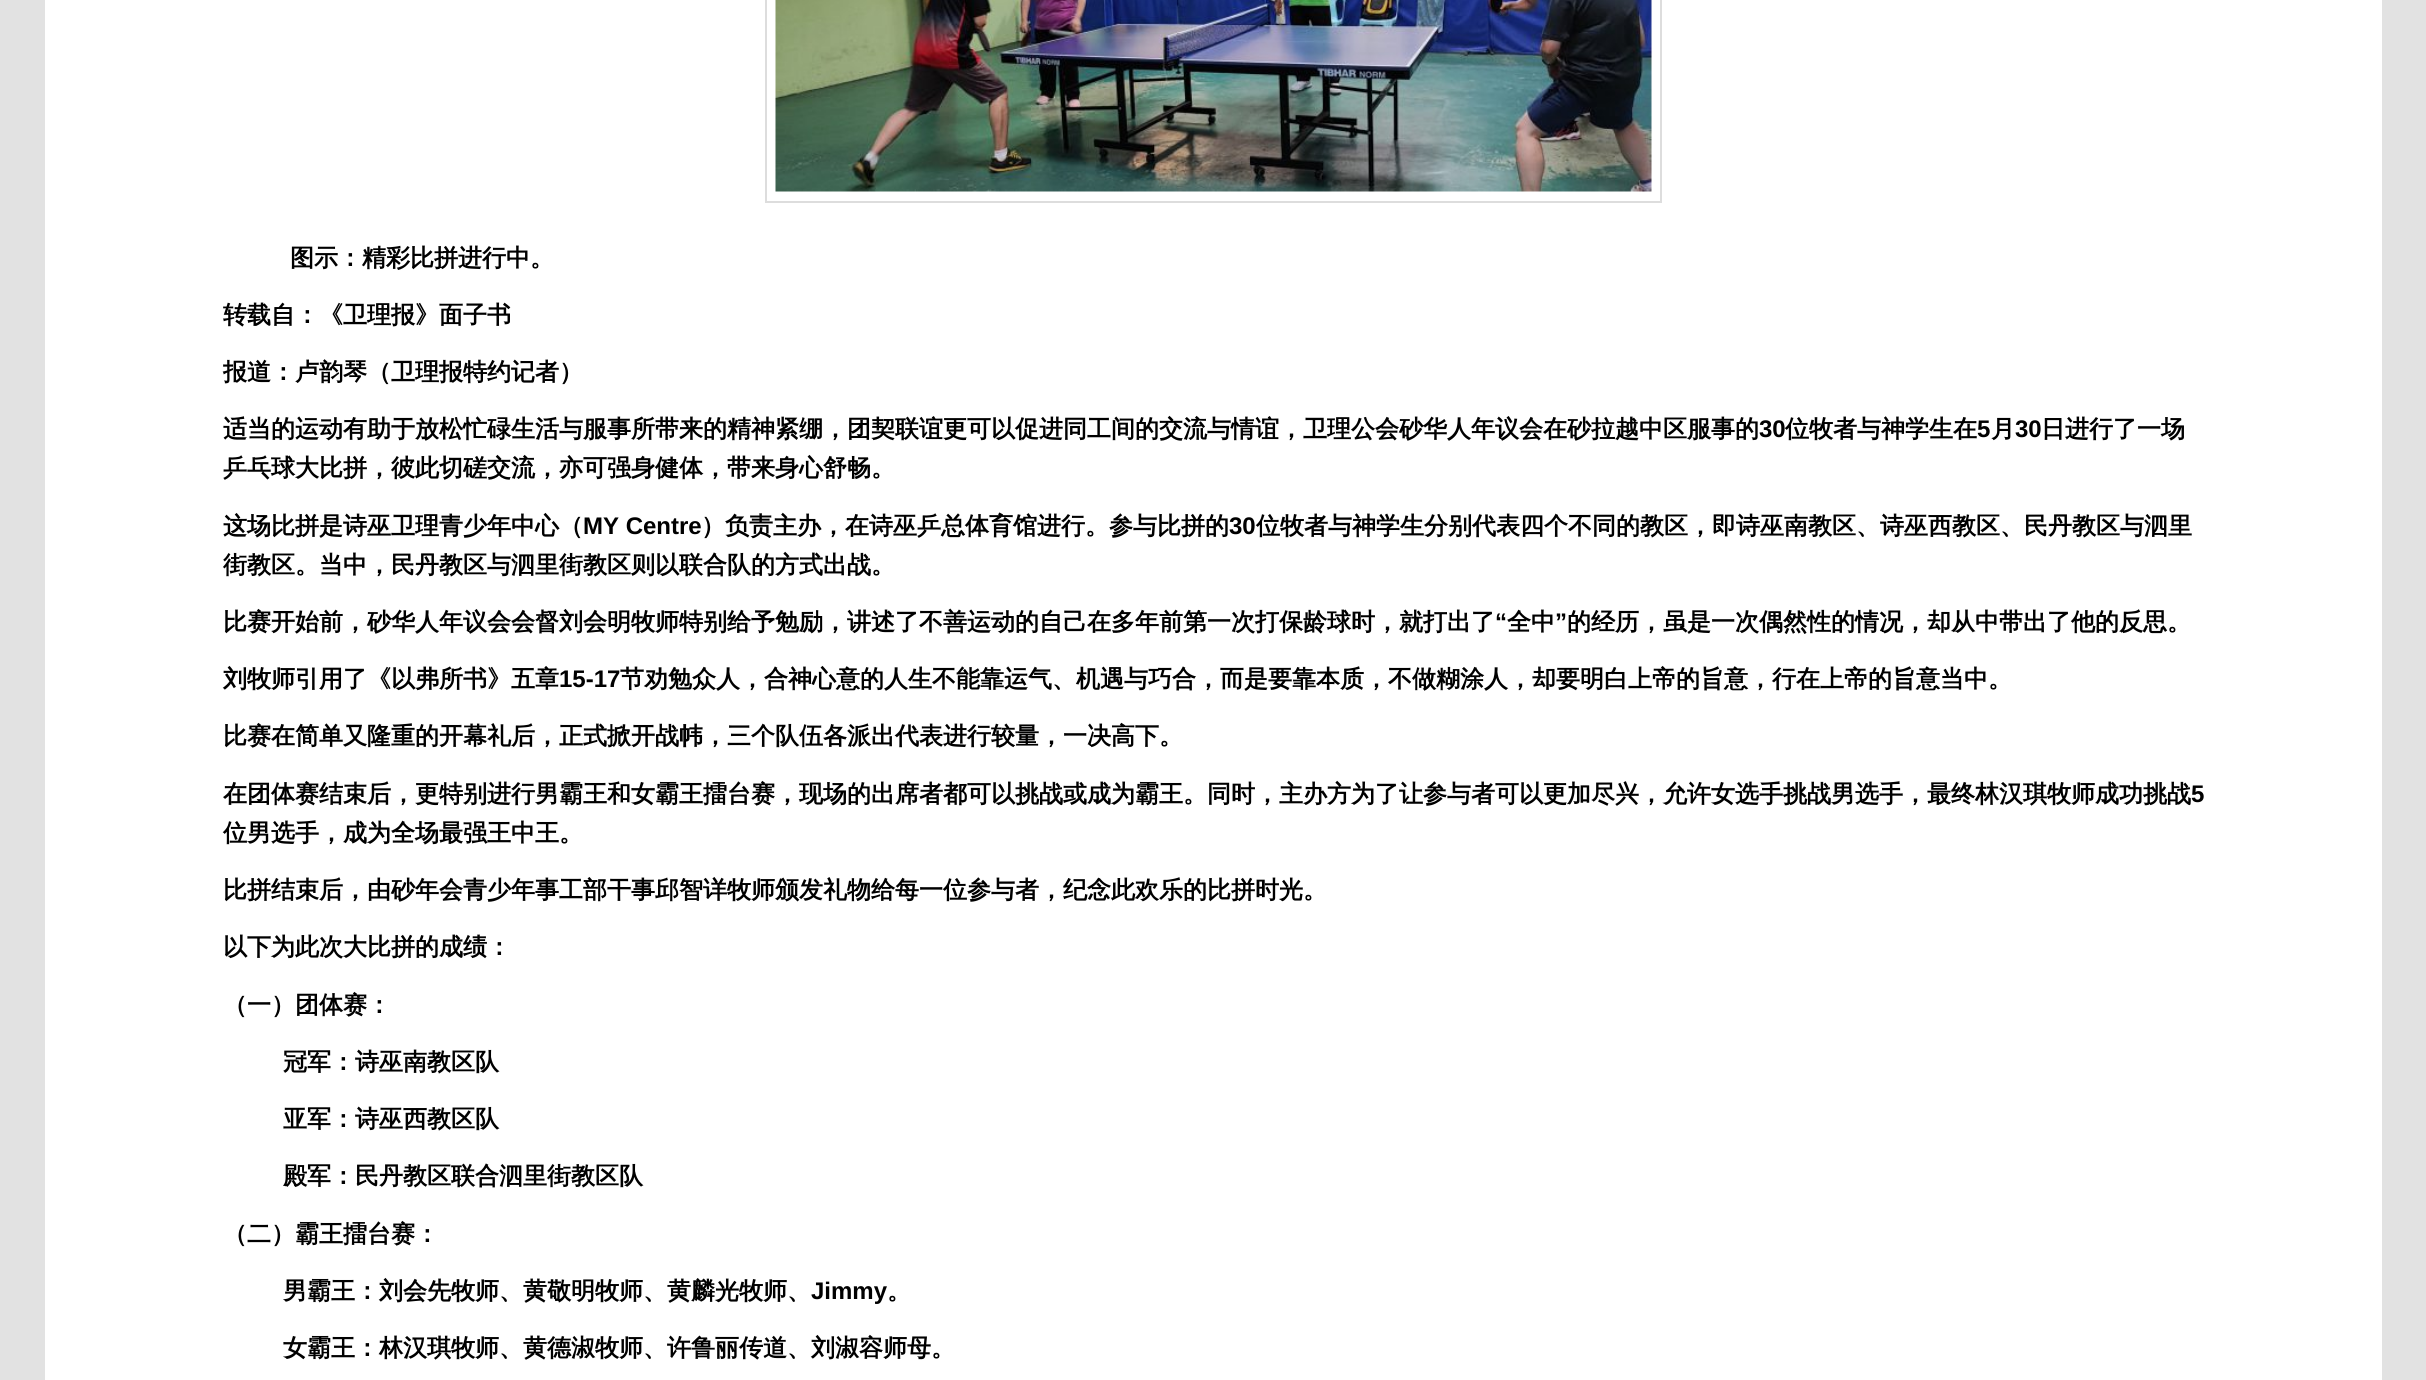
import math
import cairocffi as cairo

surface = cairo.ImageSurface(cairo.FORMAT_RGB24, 2426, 1380)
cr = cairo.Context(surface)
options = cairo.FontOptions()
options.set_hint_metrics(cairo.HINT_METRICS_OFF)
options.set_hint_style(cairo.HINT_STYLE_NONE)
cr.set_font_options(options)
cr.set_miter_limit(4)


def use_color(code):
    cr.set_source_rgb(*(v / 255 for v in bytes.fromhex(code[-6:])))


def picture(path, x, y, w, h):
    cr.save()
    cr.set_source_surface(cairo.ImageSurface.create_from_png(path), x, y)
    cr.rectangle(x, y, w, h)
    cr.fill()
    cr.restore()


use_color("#e2e2e2")
cr.paint()
use_color("#ffffff")
cr.rectangle(45, 0, 2337, 1380)
cr.fill()
cr.rectangle(766, -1, 895, 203)
use_color("#dddddd")
cr.stroke()
picture("img1.png", 775, 0, 877, 192)
cr.select_font_face("WenQuanYi Zen Hei", cairo.FONT_SLANT_NORMAL, cairo.FONT_WEIGHT_BOLD)
cr.set_font_size(24)
use_color("#000000")
cr.move_to(290, 266)
cr.show_text("图示：精彩比拼进行中。")
cr.move_to(223, 323)
cr.show_text("转载自：《卫理报》面子书")
cr.move_to(223, 380)
cr.show_text("报道：卢韵琴（卫理报特约记者）")
cr.move_to(223, 437)
cr.show_text("适当的运动有助于放松忙碌生活与服事所带来的精神紧绷，团契联谊更可以促进同工间的交流与情谊，卫理公会砂华人年议会在砂拉越中区服事的")
cr.select_font_face("Liberation Sans", cairo.FONT_SLANT_NORMAL, cairo.FONT_WEIGHT_BOLD)
cr.move_to(1759, 437)
cr.show_text("30")
cr.select_font_face("WenQuanYi Zen Hei", cairo.FONT_SLANT_NORMAL, cairo.FONT_WEIGHT_BOLD)
cr.move_to(1785, 437)
cr.show_text("位牧者与神学生在")
cr.select_font_face("Liberation Sans", cairo.FONT_SLANT_NORMAL, cairo.FONT_WEIGHT_BOLD)
cr.move_to(1977, 437)
cr.show_text("5")
cr.select_font_face("WenQuanYi Zen Hei", cairo.FONT_SLANT_NORMAL, cairo.FONT_WEIGHT_BOLD)
cr.move_to(1991, 437)
cr.show_text("月")
cr.select_font_face("Liberation Sans", cairo.FONT_SLANT_NORMAL, cairo.FONT_WEIGHT_BOLD)
cr.move_to(2015, 437)
cr.show_text("30")
cr.select_font_face("WenQuanYi Zen Hei", cairo.FONT_SLANT_NORMAL, cairo.FONT_WEIGHT_BOLD)
cr.move_to(2041, 437)
cr.show_text("日进行了一场")
cr.move_to(223, 476)
cr.show_text("乒乓球大比拼，彼此切磋交流，亦可强身健体，带来身心舒畅。")
cr.move_to(223, 534)
cr.show_text("这场比拼是诗巫卫理青少年中心（")
cr.select_font_face("Liberation Sans", cairo.FONT_SLANT_NORMAL, cairo.FONT_WEIGHT_BOLD)
cr.move_to(583, 534)
cr.show_text("MY Centre")
cr.select_font_face("WenQuanYi Zen Hei", cairo.FONT_SLANT_NORMAL, cairo.FONT_WEIGHT_BOLD)
cr.move_to(701, 534)
cr.show_text("）负责主办，在诗巫乒总体育馆进行。参与比拼的")
cr.select_font_face("Liberation Sans", cairo.FONT_SLANT_NORMAL, cairo.FONT_WEIGHT_BOLD)
cr.move_to(1229, 534)
cr.show_text("30")
cr.select_font_face("WenQuanYi Zen Hei", cairo.FONT_SLANT_NORMAL, cairo.FONT_WEIGHT_BOLD)
cr.move_to(1256, 534)
cr.show_text("位牧者与神学生分别代表四个不同的教区，即诗巫南教区、诗巫西教区、民丹教区与泗里")
cr.move_to(223, 573)
cr.show_text("街教区。当中，民丹教区与泗里街教区则以联合队的方式出战。")
cr.move_to(223, 630)
cr.show_text("比赛开始前，砂华人年议会会督刘会明牧师特别给予勉励，讲述了不善运动的自己在多年前第一次打保龄球时，就打出了")
cr.select_font_face("Liberation Sans", cairo.FONT_SLANT_NORMAL, cairo.FONT_WEIGHT_BOLD)
cr.move_to(1495, 630)
cr.show_text("“")
cr.select_font_face("WenQuanYi Zen Hei", cairo.FONT_SLANT_NORMAL, cairo.FONT_WEIGHT_BOLD)
cr.move_to(1507, 630)
cr.show_text("全中")
cr.select_font_face("Liberation Sans", cairo.FONT_SLANT_NORMAL, cairo.FONT_WEIGHT_BOLD)
cr.move_to(1555, 630)
cr.show_text("”")
cr.select_font_face("WenQuanYi Zen Hei", cairo.FONT_SLANT_NORMAL, cairo.FONT_WEIGHT_BOLD)
cr.move_to(1567, 630)
cr.show_text("的经历，虽是一次偶然性的情况，却从中带出了他的反思。")
cr.move_to(223, 687)
cr.show_text("刘牧师引用了《以弗所书》五章")
cr.select_font_face("Liberation Sans", cairo.FONT_SLANT_NORMAL, cairo.FONT_WEIGHT_BOLD)
cr.move_to(559, 687)
cr.show_text("15-17")
cr.select_font_face("WenQuanYi Zen Hei", cairo.FONT_SLANT_NORMAL, cairo.FONT_WEIGHT_BOLD)
cr.move_to(620, 687)
cr.show_text("节劝勉众人，合神心意的人生不能靠运气、机遇与巧合，而是要靠本质，不做糊涂人，却要明白上帝的旨意，行在上帝的旨意当中。")
cr.move_to(223, 744)
cr.show_text("比赛在简单又隆重的开幕礼后，正式掀开战帏，三个队伍各派出代表进行较量，一决高下。")
cr.move_to(223, 802)
cr.show_text("在团体赛结束后，更特别进行男霸王和女霸王擂台赛，现场的出席者都可以挑战或成为霸王。同时，主办方为了让参与者可以更加尽兴，允许女选手挑战男选手，最终林汉琪牧师成功挑战")
cr.select_font_face("Liberation Sans", cairo.FONT_SLANT_NORMAL, cairo.FONT_WEIGHT_BOLD)
cr.move_to(2191, 802)
cr.show_text("5")
cr.select_font_face("WenQuanYi Zen Hei", cairo.FONT_SLANT_NORMAL, cairo.FONT_WEIGHT_BOLD)
cr.move_to(223, 841)
cr.show_text("位男选手，成为全场最强王中王。")
cr.move_to(223, 898)
cr.show_text("比拼结束后，由砂年会青少年事工部干事邱智详牧师颁发礼物给每一位参与者，纪念此欢乐的比拼时光。")
cr.move_to(223, 955)
cr.show_text("以下为此次大比拼的成绩：")
cr.move_to(223, 1013)
cr.show_text("（一）团体赛：")
cr.move_to(283, 1070)
cr.show_text("冠军：诗巫南教区队")
cr.move_to(283, 1127)
cr.show_text("亚军：诗巫西教区队")
cr.move_to(283, 1184)
cr.show_text("殿军：民丹教区联合泗里街教区队")
cr.move_to(223, 1242)
cr.show_text("（二）霸王擂台赛：")
cr.move_to(283, 1299)
cr.show_text("男霸王：刘会先牧师、黄敬明牧师、黄麟光牧师、")
cr.select_font_face("Liberation Sans", cairo.FONT_SLANT_NORMAL, cairo.FONT_WEIGHT_BOLD)
cr.move_to(811, 1299)
cr.show_text("Jimmy")
cr.select_font_face("WenQuanYi Zen Hei", cairo.FONT_SLANT_NORMAL, cairo.FONT_WEIGHT_BOLD)
cr.move_to(887, 1299)
cr.show_text("。")
cr.move_to(283, 1356)
cr.show_text("女霸王：林汉琪牧师、黄德淑牧师、许鲁丽传道、刘淑容师母。")
surface.write_to_png("result.png")
